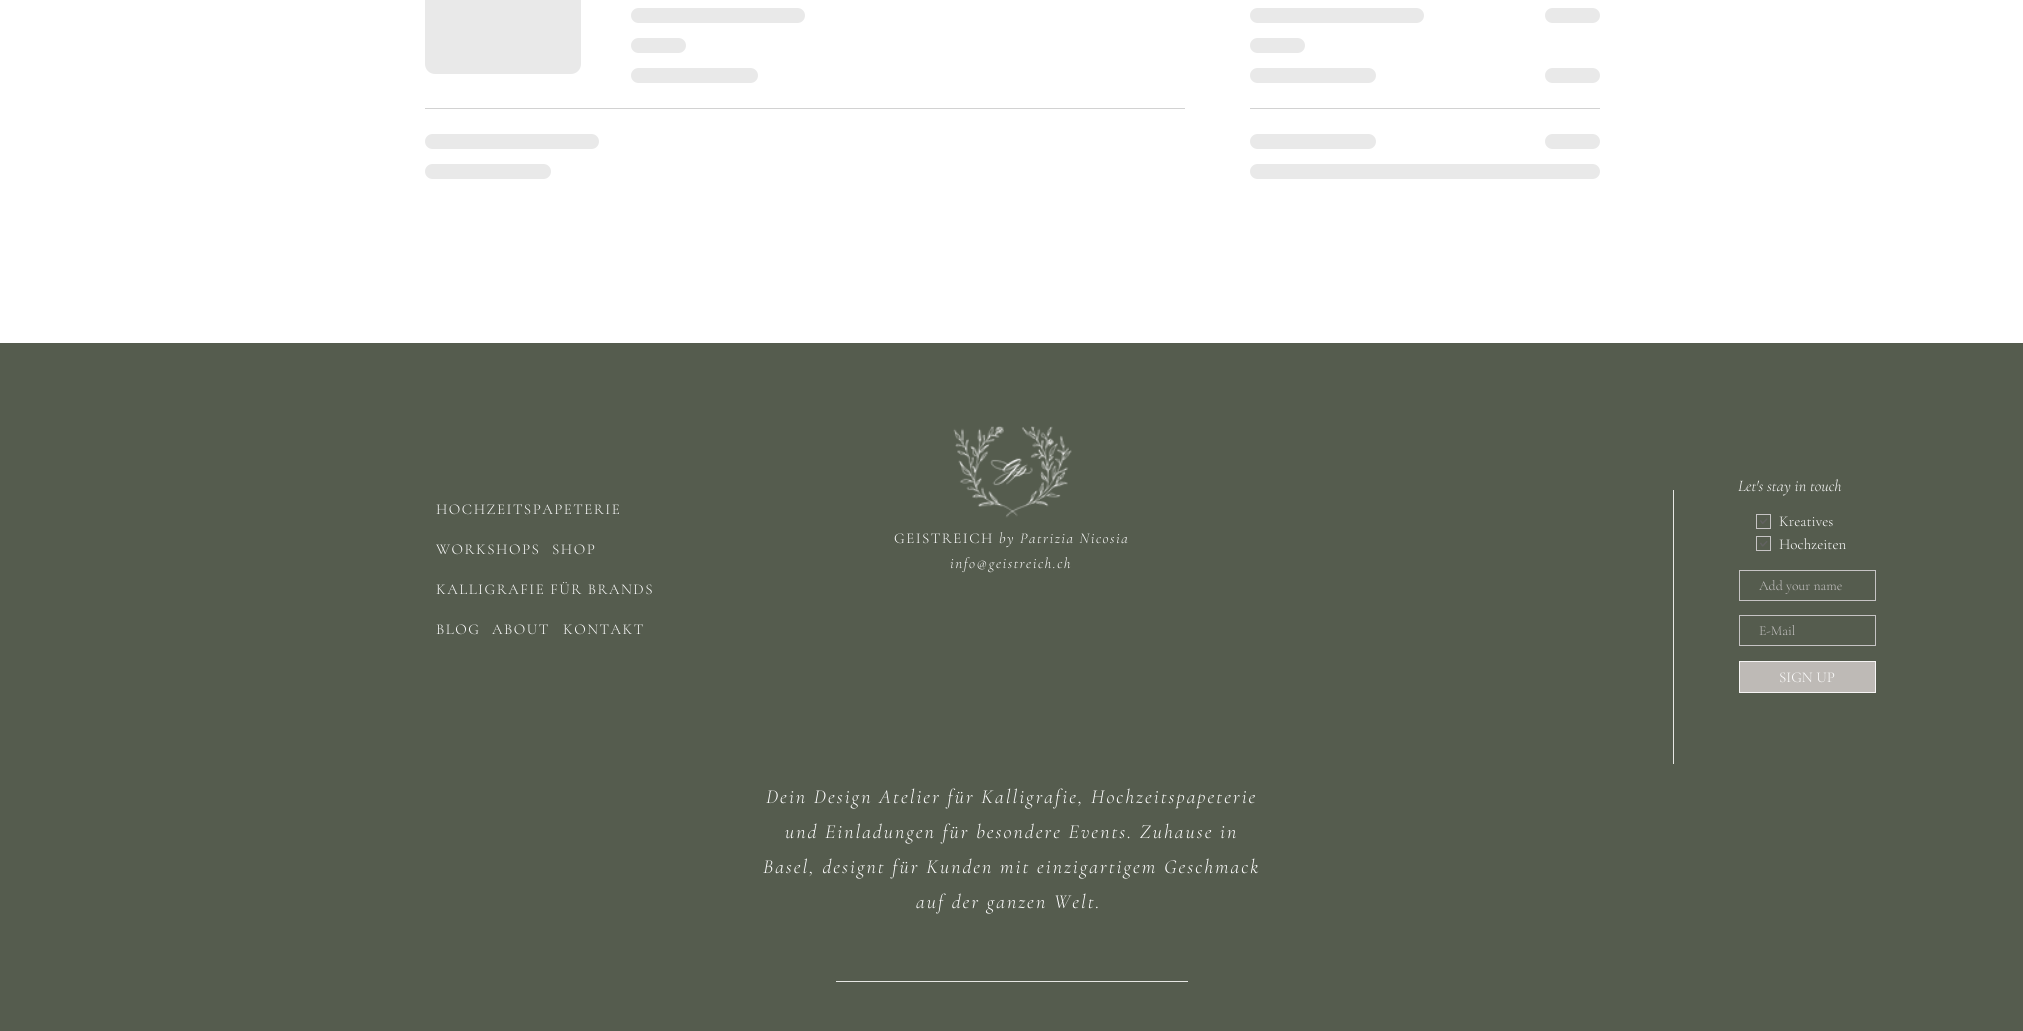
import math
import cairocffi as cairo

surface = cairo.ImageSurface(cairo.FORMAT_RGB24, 2023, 1031)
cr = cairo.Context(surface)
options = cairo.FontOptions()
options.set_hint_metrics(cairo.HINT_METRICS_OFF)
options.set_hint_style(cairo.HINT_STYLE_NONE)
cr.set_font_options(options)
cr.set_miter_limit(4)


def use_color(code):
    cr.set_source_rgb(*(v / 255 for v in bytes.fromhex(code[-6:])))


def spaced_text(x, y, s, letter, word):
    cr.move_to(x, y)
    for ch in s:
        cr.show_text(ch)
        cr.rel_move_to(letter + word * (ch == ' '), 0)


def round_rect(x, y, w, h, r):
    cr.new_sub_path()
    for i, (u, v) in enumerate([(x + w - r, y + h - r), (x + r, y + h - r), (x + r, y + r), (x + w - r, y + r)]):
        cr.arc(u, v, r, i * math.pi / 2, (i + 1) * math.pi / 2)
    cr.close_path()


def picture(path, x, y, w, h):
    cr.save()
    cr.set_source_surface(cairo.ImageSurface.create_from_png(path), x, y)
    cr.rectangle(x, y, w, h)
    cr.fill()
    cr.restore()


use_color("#ffffff")
cr.paint()
gradient = cairo.LinearGradient(425, -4.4, 1050, -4.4)
gradient.add_color_stop_rgba(0.25, 0.914, 0.914, 0.914, 1)
gradient.add_color_stop_rgba(0.37, 0.824, 0.824, 0.824, 1)
gradient.add_color_stop_rgba(0.63, 0.914, 0.914, 0.914, 1)
cr.set_source(gradient)
round_rect(425, -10, 156, 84, 10)
cr.fill()
gradient = cairo.LinearGradient(631, 15, 1326, 15)
gradient.add_color_stop_rgba(0.25, 0.914, 0.914, 0.914, 1)
gradient.add_color_stop_rgba(0.37, 0.824, 0.824, 0.824, 1)
gradient.add_color_stop_rgba(0.63, 0.914, 0.914, 0.914, 1)
cr.set_source(gradient)
round_rect(631, 8, 174, 15, 7.5)
cr.fill()
gradient = cairo.LinearGradient(631, 45, 851, 45)
gradient.add_color_stop_rgba(0.25, 0.914, 0.914, 0.914, 1)
gradient.add_color_stop_rgba(0.37, 0.824, 0.824, 0.824, 1)
gradient.add_color_stop_rgba(0.63, 0.914, 0.914, 0.914, 1)
cr.set_source(gradient)
round_rect(631, 38, 55, 15, 7.5)
cr.fill()
gradient = cairo.LinearGradient(631, 75, 1136, 75)
gradient.add_color_stop_rgba(0.25, 0.914, 0.914, 0.914, 1)
gradient.add_color_stop_rgba(0.37, 0.824, 0.824, 0.824, 1)
gradient.add_color_stop_rgba(0.63, 0.914, 0.914, 0.914, 1)
cr.set_source(gradient)
round_rect(631, 68, 127, 15, 7.5)
cr.fill()
use_color("#d2d2d2")
cr.rectangle(425, 108, 760, 1)
cr.fill()
gradient = cairo.LinearGradient(425, 141, 1120, 141)
gradient.add_color_stop_rgba(0.25, 0.914, 0.914, 0.914, 1)
gradient.add_color_stop_rgba(0.37, 0.824, 0.824, 0.824, 1)
gradient.add_color_stop_rgba(0.63, 0.914, 0.914, 0.914, 1)
cr.set_source(gradient)
round_rect(425, 134, 174, 15, 7.5)
cr.fill()
gradient = cairo.LinearGradient(425, 171, 930, 171)
gradient.add_color_stop_rgba(0.25, 0.914, 0.914, 0.914, 1)
gradient.add_color_stop_rgba(0.37, 0.824, 0.824, 0.824, 1)
gradient.add_color_stop_rgba(0.63, 0.914, 0.914, 0.914, 1)
cr.set_source(gradient)
round_rect(425, 164, 126, 15, 7.5)
cr.fill()
gradient = cairo.LinearGradient(1250, 15, 1945, 15)
gradient.add_color_stop_rgba(0.25, 0.914, 0.914, 0.914, 1)
gradient.add_color_stop_rgba(0.37, 0.824, 0.824, 0.824, 1)
gradient.add_color_stop_rgba(0.63, 0.914, 0.914, 0.914, 1)
cr.set_source(gradient)
round_rect(1250, 8, 174, 15, 7.5)
cr.fill()
gradient = cairo.LinearGradient(1545, 15, 1765, 15)
gradient.add_color_stop_rgba(0.25, 0.914, 0.914, 0.914, 1)
gradient.add_color_stop_rgba(0.37, 0.824, 0.824, 0.824, 1)
gradient.add_color_stop_rgba(0.63, 0.914, 0.914, 0.914, 1)
cr.set_source(gradient)
round_rect(1545, 8, 55, 15, 7.5)
cr.fill()
gradient = cairo.LinearGradient(1250, 45, 1470, 45)
gradient.add_color_stop_rgba(0.25, 0.914, 0.914, 0.914, 1)
gradient.add_color_stop_rgba(0.37, 0.824, 0.824, 0.824, 1)
gradient.add_color_stop_rgba(0.63, 0.914, 0.914, 0.914, 1)
cr.set_source(gradient)
round_rect(1250, 38, 55, 15, 7.5)
cr.fill()
gradient = cairo.LinearGradient(1250, 75, 1755, 75)
gradient.add_color_stop_rgba(0.25, 0.914, 0.914, 0.914, 1)
gradient.add_color_stop_rgba(0.37, 0.824, 0.824, 0.824, 1)
gradient.add_color_stop_rgba(0.63, 0.914, 0.914, 0.914, 1)
cr.set_source(gradient)
round_rect(1250, 68, 126, 15, 7.5)
cr.fill()
gradient = cairo.LinearGradient(1545, 75, 1765, 75)
gradient.add_color_stop_rgba(0.25, 0.914, 0.914, 0.914, 1)
gradient.add_color_stop_rgba(0.37, 0.824, 0.824, 0.824, 1)
gradient.add_color_stop_rgba(0.63, 0.914, 0.914, 0.914, 1)
cr.set_source(gradient)
round_rect(1545, 68, 55, 15, 7.5)
cr.fill()
use_color("#d2d2d2")
cr.rectangle(1250, 108, 350, 1)
cr.fill()
gradient = cairo.LinearGradient(1250, 141, 1755, 141)
gradient.add_color_stop_rgba(0.25, 0.914, 0.914, 0.914, 1)
gradient.add_color_stop_rgba(0.37, 0.824, 0.824, 0.824, 1)
gradient.add_color_stop_rgba(0.63, 0.914, 0.914, 0.914, 1)
cr.set_source(gradient)
round_rect(1250, 134, 126, 15, 7.5)
cr.fill()
gradient = cairo.LinearGradient(1545, 141, 1765, 141)
gradient.add_color_stop_rgba(0.25, 0.914, 0.914, 0.914, 1)
gradient.add_color_stop_rgba(0.37, 0.824, 0.824, 0.824, 1)
gradient.add_color_stop_rgba(0.63, 0.914, 0.914, 0.914, 1)
cr.set_source(gradient)
round_rect(1545, 134, 55, 15, 7.5)
cr.fill()
gradient = cairo.LinearGradient(1250, 171, 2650, 171)
gradient.add_color_stop_rgba(0.25, 0.914, 0.914, 0.914, 1)
gradient.add_color_stop_rgba(0.37, 0.824, 0.824, 0.824, 1)
gradient.add_color_stop_rgba(0.63, 0.914, 0.914, 0.914, 1)
cr.set_source(gradient)
round_rect(1250, 164, 350, 15, 7.5)
cr.fill()
use_color("#555c4e")
cr.rectangle(0, 343, 2023, 688)
cr.fill()
picture("img1.png", 953, 426, 119, 92)
cr.select_font_face("Cormorant Garamond Light", cairo.FONT_SLANT_ITALIC)
cr.set_font_size(16.25)
use_color("#ffffff")
cr.move_to(1738, 491)
cr.show_text("Let's stay in touch")
cr.select_font_face("Cormorant Garamond Light")
cr.set_font_size(15)
spaced_text(436, 514, "HOCHZEITSPAPETERIE", 1.5, 0)
spaced_text(436, 554, "WORKSHOPS", 1.5, 0)
spaced_text(552, 554, "SHOP", 1.5, 0)
spaced_text(436, 594, "KALLIGRAFIE FÜR BRANDS", 1.5, 0)
spaced_text(436, 634, "BLOG", 1.5, 0)
spaced_text(492, 634, "ABOUT", 1.5, 0)
spaced_text(563, 634, "KONTAKT", 1.5, 0)
spaced_text(894, 543, "GEISTREICH", 1.5, 0)
cr.select_font_face("Cormorant Garamond Light", cairo.FONT_SLANT_ITALIC)
spaced_text(999, 543, "by Patrizia Nicosia", 1.5, 0)
use_color("#e6e7e4")
cr.rectangle(1673, 490, 1, 274)
cr.fill()
cr.rectangle(1756.5, 514.5, 14, 14)
use_color("#c6c4c4")
cr.set_line_width(1)
cr.stroke()
cr.select_font_face("Cormorant Garamond Light")
use_color("#ffffff")
cr.move_to(1779, 526)
cr.show_text("Kreatives")
picture("img2.png", 1760, 518, 8, 6)
cr.rectangle(1756.5, 536.5, 14, 14)
use_color("#c6c4c4")
cr.stroke()
use_color("#ffffff")
cr.move_to(1779, 549)
cr.show_text("Hochzeiten")
picture("img3.png", 1760, 541, 8, 6)
cr.rectangle(1739.5, 570.5, 136, 30)
use_color("#c6c4c4")
cr.stroke()
cr.set_font_size(13.75)
cr.move_to(1759, 590)
cr.show_text("Add your name")
cr.rectangle(1739.5, 615.5, 136, 30)
cr.stroke()
cr.move_to(1759, 635)
cr.show_text("E-Mail")
use_color("#bebab6")
cr.rectangle(1739.5, 661.5, 136, 31)
cr.fill_preserve()
use_color("#f7f5f5")
cr.stroke()
cr.set_font_size(15)
use_color("#ffffff")
cr.move_to(1779, 682)
cr.show_text("SIGN UP")
cr.select_font_face("Cormorant Garamond Light", cairo.FONT_SLANT_ITALIC)
spaced_text(950, 568, "info@geistreich.ch", 1.5, 0)
cr.set_font_size(20)
spaced_text(766, 803, "Dein Design Atelier für Kalligrafie, Hochzeitspapeterie", 2, 0)
spaced_text(785, 838, "und Einladungen für besondere Events. Zuhause in", 2, 0)
spaced_text(763, 873, "Basel, designt für Kunden mit einzigartigem Geschmack", 2, 0)
spaced_text(916, 908, "auf der ganzen Welt.", 2, 0)
use_color("#e6e7e4")
cr.rectangle(836, 981, 352, 1)
cr.fill()
surface.write_to_png("result.png")
